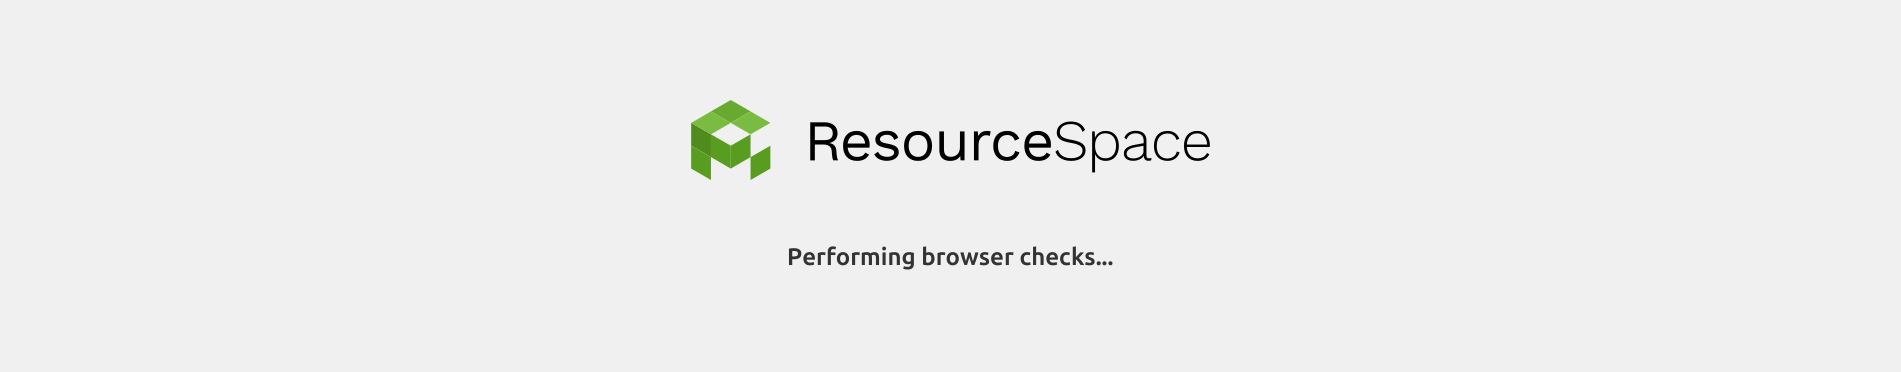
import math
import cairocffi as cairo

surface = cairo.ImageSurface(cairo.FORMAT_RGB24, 1901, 372)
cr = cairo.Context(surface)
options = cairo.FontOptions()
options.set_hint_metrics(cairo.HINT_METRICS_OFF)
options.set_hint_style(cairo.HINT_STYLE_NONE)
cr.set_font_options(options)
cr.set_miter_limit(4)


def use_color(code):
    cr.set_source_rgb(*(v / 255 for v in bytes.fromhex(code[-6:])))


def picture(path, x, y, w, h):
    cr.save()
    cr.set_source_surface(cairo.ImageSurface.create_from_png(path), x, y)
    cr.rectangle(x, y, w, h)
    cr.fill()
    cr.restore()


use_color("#f0f0f0")
cr.paint()
picture("img1.png", 691, 100, 519, 80)
cr.select_font_face("Ubuntu", cairo.FONT_SLANT_NORMAL, cairo.FONT_WEIGHT_BOLD)
cr.set_font_size(24)
use_color("#333333")
cr.move_to(787, 265)
cr.show_text("Performing browser checks...")
surface.write_to_png("result.png")
